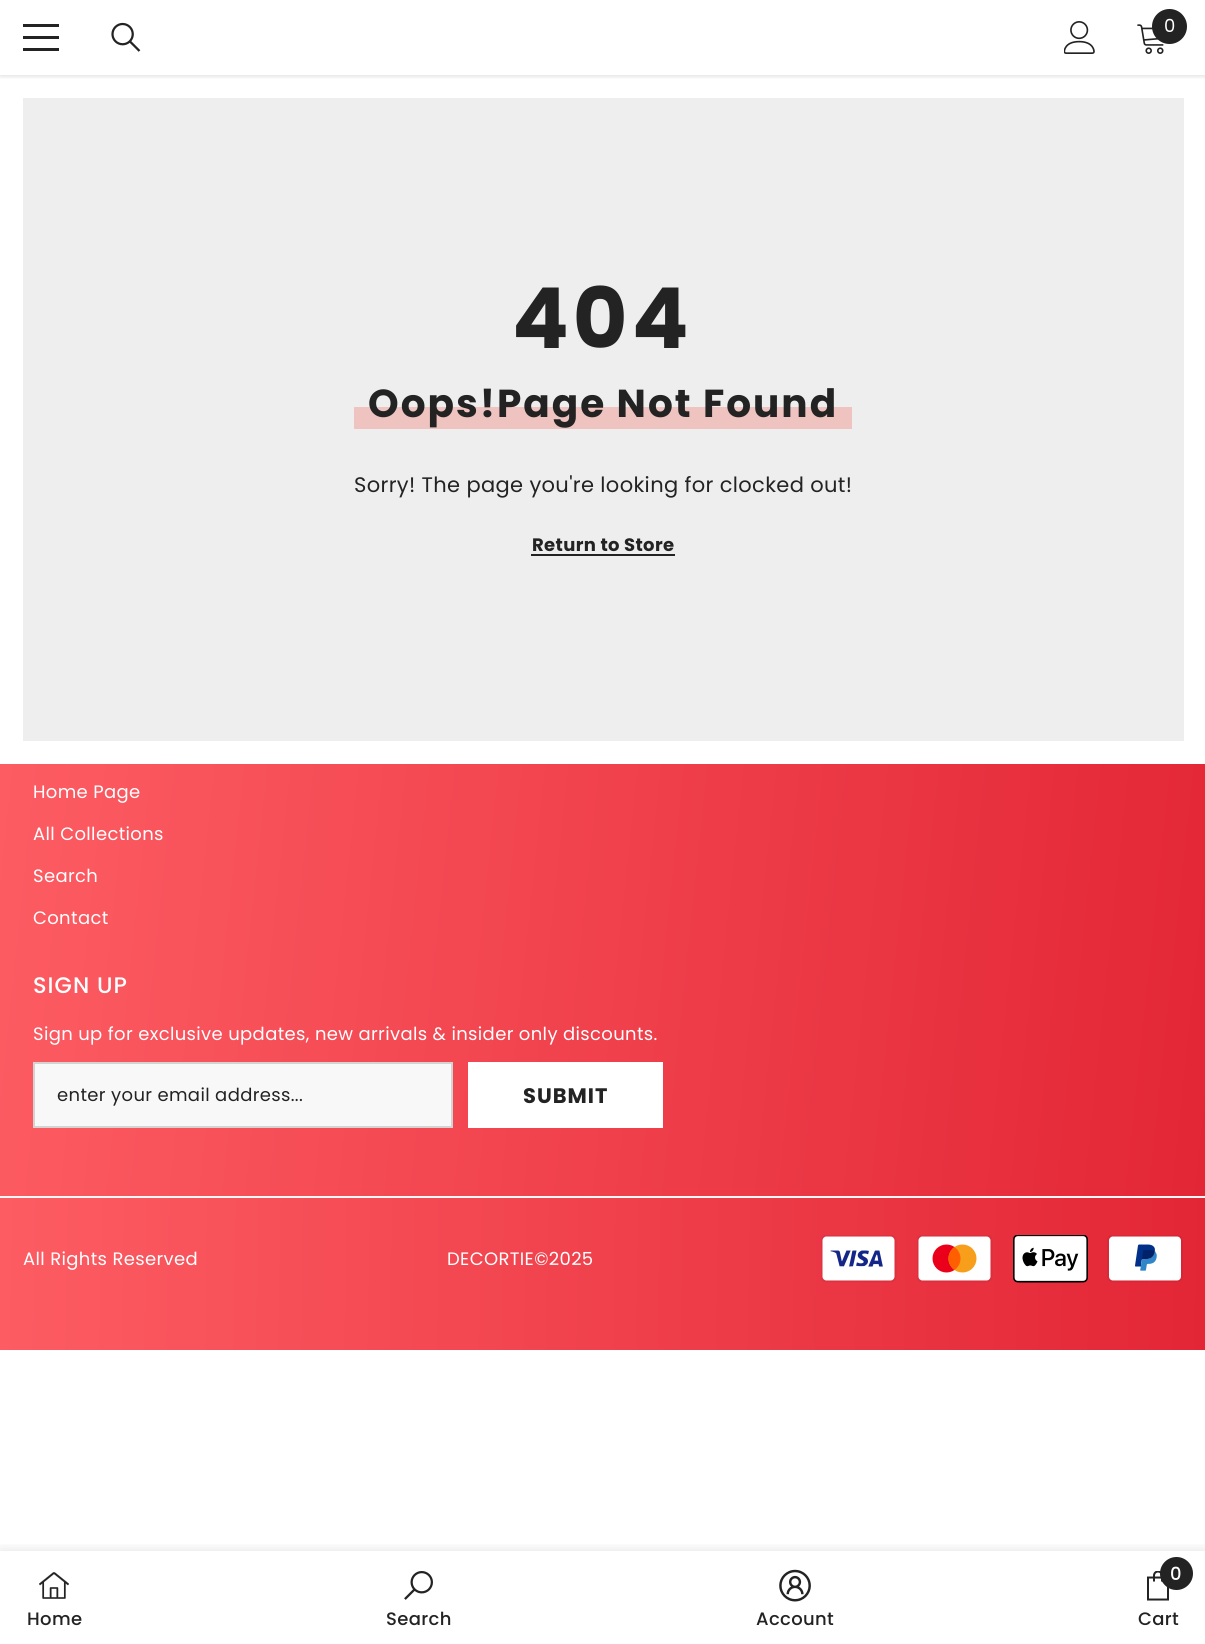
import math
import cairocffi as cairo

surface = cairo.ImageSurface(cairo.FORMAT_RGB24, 1205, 1644)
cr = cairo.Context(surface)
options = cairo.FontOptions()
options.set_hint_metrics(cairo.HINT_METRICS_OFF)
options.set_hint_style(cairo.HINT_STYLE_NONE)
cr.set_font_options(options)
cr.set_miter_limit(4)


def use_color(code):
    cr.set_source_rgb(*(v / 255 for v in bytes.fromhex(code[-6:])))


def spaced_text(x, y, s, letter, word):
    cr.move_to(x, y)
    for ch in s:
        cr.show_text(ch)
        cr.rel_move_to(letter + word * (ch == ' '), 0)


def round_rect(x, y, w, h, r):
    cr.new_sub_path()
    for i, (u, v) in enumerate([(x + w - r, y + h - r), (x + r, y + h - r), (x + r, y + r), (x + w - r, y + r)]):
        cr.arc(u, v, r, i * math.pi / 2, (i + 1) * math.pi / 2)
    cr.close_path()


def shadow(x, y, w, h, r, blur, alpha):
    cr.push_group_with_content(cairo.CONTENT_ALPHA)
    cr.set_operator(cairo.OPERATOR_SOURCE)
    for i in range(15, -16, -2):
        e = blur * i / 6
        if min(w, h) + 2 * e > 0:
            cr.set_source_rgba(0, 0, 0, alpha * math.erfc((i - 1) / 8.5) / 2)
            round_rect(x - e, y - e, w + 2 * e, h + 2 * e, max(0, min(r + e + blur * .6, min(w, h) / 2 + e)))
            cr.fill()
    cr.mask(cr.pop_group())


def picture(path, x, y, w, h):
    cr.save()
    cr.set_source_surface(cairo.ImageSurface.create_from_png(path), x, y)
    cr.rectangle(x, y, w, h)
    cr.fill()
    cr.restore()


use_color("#ffffff")
cr.paint()
cr.save()
cr.rectangle(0, 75, 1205, 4)
cr.clip()
use_color("#000000")
shadow(0, 2, 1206, 75, 0, 2, 0.1)
cr.restore()
use_color("#232323")
cr.rectangle(23, 36, 36, 3)
cr.fill()
cr.rectangle(23, 24, 36, 3)
cr.fill()
cr.rectangle(23, 48, 36, 3)
cr.fill()
picture("img1.png", 111, 22, 30, 30)
picture("img2.png", 1064, 21, 31, 33)
picture("img3.png", 1137, 24, 27, 30)
cr.arc(1169.5, 26.5, 17.5, 0, 2 * math.pi)
cr.fill()
cr.select_font_face("Poppins")
cr.set_font_size(18)
use_color("#ffffff")
cr.move_to(1164, 32)
cr.show_text("0")
use_color("#eeeeee")
cr.rectangle(23, 98, 1161, 643)
cr.fill()
cr.select_font_face("Poppins", cairo.FONT_SLANT_NORMAL, cairo.FONT_WEIGHT_BOLD)
cr.set_font_size(84)
use_color("#232323")
spaced_text(512, 348, "404", 4, 0)
use_color("#efc3c0")
cr.rectangle(354, 407, 498, 22)
cr.fill()
cr.set_font_size(39)
use_color("#232323")
spaced_text(368, 417, "Oops!Page Not Found", 2, 0)
cr.select_font_face("Poppins")
cr.set_font_size(21)
spaced_text(354, 492, "Sorry! The page you're looking for clocked out!", 0.35, 0)
cr.select_font_face("Poppins", cairo.FONT_SLANT_NORMAL, cairo.FONT_WEIGHT_BOLD)
cr.set_font_size(18)
spaced_text(532, 551, "Return to Store", 0.35, 0)
cr.rectangle(531, 554, 144, 2)
cr.fill()
gradient = cairo.LinearGradient(-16, 914, 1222, 1045)
gradient.add_color_stop_rgba(0, 0.992, 0.361, 0.388, 1)
gradient.add_color_stop_rgba(1, 0.89, 0.149, 0.212, 1)
cr.set_source(gradient)
cr.rectangle(0, 764, 1205, 432)
cr.fill()
cr.select_font_face("Poppins")
use_color("#ffffff")
spaced_text(33, 798, "Home Page", 0.35, 0)
spaced_text(33, 840, "All Collections", 0.35, 0)
spaced_text(33, 882, "Search", 0.35, 0)
spaced_text(33, 924, "Contact", 0.35, 0)
cr.select_font_face("Poppins Medium")
cr.set_font_size(22.5)
spaced_text(33, 993, "SIGN UP", 1, 0)
cr.select_font_face("Poppins")
cr.set_font_size(18)
spaced_text(33, 1040, "Sign up for exclusive updates, new arrivals & insider only discounts.", 0.35, 0)
use_color("#f8f8f8")
cr.rectangle(34, 1063, 418, 64)
cr.fill_preserve()
use_color("#d3d3d3")
cr.stroke()
use_color("#232323")
spaced_text(57, 1101, "enter your email address...", 0.35, 0)
use_color("#ffffff")
cr.rectangle(468, 1062, 195, 66)
cr.fill()
cr.select_font_face("Poppins", cairo.FONT_SLANT_NORMAL, cairo.FONT_WEIGHT_BOLD)
cr.set_font_size(21)
use_color("#232323")
spaced_text(523, 1103, "SUBMIT", 1, 0)
gradient = cairo.LinearGradient(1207, 1284, -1.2, 1263)
gradient.add_color_stop_rgba(0, 0.89, 0.149, 0.212, 1)
gradient.add_color_stop_rgba(1, 0.992, 0.361, 0.388, 1)
cr.set_source(gradient)
cr.rectangle(0, 1198, 1205, 152)
cr.fill()
use_color("#f8f8f8")
cr.rectangle(0, 1196, 1205, 2)
cr.fill()
cr.select_font_face("Poppins")
cr.set_font_size(18)
use_color("#ffffff")
spaced_text(23, 1265, "All Rights Reserved", 0.35, 0)
spaced_text(447, 1265, "DECORTIE©2025", 0.35, 0)
picture("img4.png", 821, 1235, 76, 48)
picture("img5.png", 917, 1235, 76, 48)
picture("img6.png", 1013, 1235, 75, 48)
picture("img7.png", 1107, 1235, 76, 48)
cr.save()
cr.rectangle(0, 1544, 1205, 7)
cr.clip()
use_color("#000000")
shadow(0, 1551, 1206, 93, 0, 7, 0.12)
cr.restore()
picture("img8.png", 39, 1572, 30, 27)
cr.select_font_face("Poppins Medium")
use_color("#232323")
spaced_text(27, 1625, "Home", 0.35, 0)
picture("img9.png", 404, 1571, 29, 29)
spaced_text(386, 1625, "Search", 0.35, 0)
picture("img10.png", 779, 1569, 32, 33)
spaced_text(756, 1625, "Account", 0.35, 0)
picture("img11.png", 1147, 1571, 22, 30)
cr.arc(1176.5, 1573.5, 16.5, 0, 2 * math.pi)
cr.fill()
use_color("#ffffff")
cr.move_to(1170, 1580)
cr.show_text("0")
use_color("#232323")
spaced_text(1138, 1625, "Cart", 0.35, 0)
surface.write_to_png("result.png")
